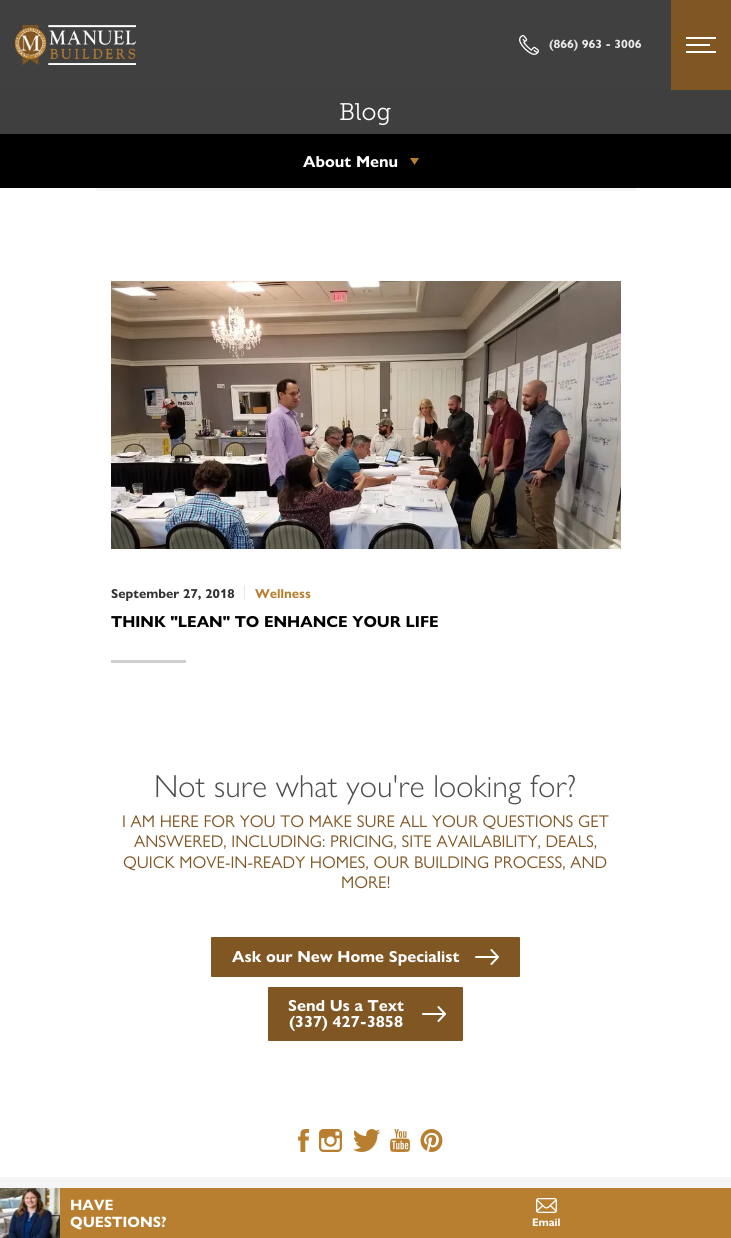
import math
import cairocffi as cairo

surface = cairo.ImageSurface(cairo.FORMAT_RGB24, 731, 1238)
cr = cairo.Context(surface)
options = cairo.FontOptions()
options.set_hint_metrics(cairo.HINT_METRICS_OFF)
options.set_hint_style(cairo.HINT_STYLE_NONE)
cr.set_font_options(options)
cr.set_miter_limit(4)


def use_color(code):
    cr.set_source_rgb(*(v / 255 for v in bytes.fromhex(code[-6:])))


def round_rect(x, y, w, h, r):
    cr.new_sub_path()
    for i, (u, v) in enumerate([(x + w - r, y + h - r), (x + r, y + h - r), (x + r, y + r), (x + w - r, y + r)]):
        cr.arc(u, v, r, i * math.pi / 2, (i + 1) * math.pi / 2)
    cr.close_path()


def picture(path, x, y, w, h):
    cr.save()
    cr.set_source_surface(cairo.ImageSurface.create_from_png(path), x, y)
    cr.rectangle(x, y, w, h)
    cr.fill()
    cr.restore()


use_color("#ffffff")
cr.paint()
use_color("#404040")
cr.rectangle(0, 0, 671, 90)
cr.fill()
picture("img1.png", 15, 25, 121, 40)
picture("img2.png", 519, 35, 20, 20)
cr.select_font_face("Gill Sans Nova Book", cairo.FONT_SLANT_NORMAL, cairo.FONT_WEIGHT_BOLD)
cr.set_font_size(12)
use_color("#e8e8e8")
cr.move_to(549, 48)
cr.show_text("(866) 963 - 3006")
use_color("#805623")
cr.rectangle(671, 0, 60, 90)
cr.fill()
use_color("#ffffff")
cr.rectangle(686, 37, 30, 2)
cr.fill()
cr.rectangle(686, 44, 24, 2)
cr.fill()
cr.rectangle(686, 51, 30, 2)
cr.fill()
use_color("#b87f31")
cr.rectangle(60, 1188, 671, 50)
cr.fill()
picture("img3.png", 0, 1188, 60, 50)
cr.set_font_size(15)
use_color("#ffffff")
cr.move_to(70, 1210)
cr.show_text("HAVE")
cr.move_to(70, 1227)
cr.show_text("QUESTIONS?")
picture("img4.png", 536, 1198, 21, 15)
cr.set_font_size(11)
cr.move_to(532, 1226)
cr.show_text("Email")
use_color("#3f3f3f")
cr.rectangle(0, 90, 731, 44)
cr.fill()
cr.select_font_face("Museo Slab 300 Light")
cr.set_font_size(24)
use_color("#ffffff")
cr.move_to(339, 120)
cr.show_text("Blog")
use_color("#000000")
cr.rectangle(0, 134, 731, 54)
cr.fill()
use_color("#b67f2e")
cr.set_fill_rule(cairo.FILL_RULE_EVEN_ODD)
cr.new_path()
cr.move_to(414.5, 165)
cr.line_to(419, 158)
cr.line_to(410, 158)
cr.close_path()
cr.fill()
cr.select_font_face("Gill Sans Nova Book", cairo.FONT_SLANT_NORMAL, cairo.FONT_WEIGHT_BOLD)
cr.set_font_size(16)
use_color("#ffffff")
cr.move_to(303, 167)
cr.show_text("About Menu")
use_color("#f5f5f5")
cr.rectangle(96, 188, 540, 3)
cr.fill()
picture("img5.png", 111, 281, 510, 268)
cr.set_font_size(13)
use_color("#333333")
cr.move_to(111, 598)
cr.show_text("September 27, 2018")
use_color("#e6e6e6")
cr.rectangle(244, 585, 1, 15)
cr.fill()
use_color("#b87f31")
cr.move_to(255, 598)
cr.show_text("Wellness")
cr.set_font_size(16)
use_color("#000000")
cr.move_to(111, 627)
cr.show_text("THINK \"LEAN\" TO ENHANCE YOUR LIFE")
use_color("#cfcfcf")
cr.rectangle(111, 660, 75, 3)
cr.fill()
cr.select_font_face("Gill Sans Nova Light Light")
cr.set_font_size(32)
use_color("#4c4d4f")
cr.move_to(154, 797)
cr.show_text("Not sure what you're looking for?")
cr.select_font_face("Gill Sans Nova Book")
cr.set_font_size(17)
use_color("#805623")
cr.move_to(122, 827)
cr.show_text("I AM HERE FOR YOU TO MAKE SURE ALL YOUR QUESTIONS GET")
cr.move_to(134, 847)
cr.show_text("ANSWERED, INCLUDING: PRICING, SITE AVAILABILITY, DEALS,")
cr.move_to(123, 868)
cr.show_text("QUICK MOVE-IN-READY HOMES, OUR BUILDING PROCESS, AND")
cr.move_to(341, 888)
cr.show_text("MORE!")
round_rect(211, 937, 309, 40, 1)
cr.fill()
picture("img6.png", 475, 949, 24, 16)
cr.select_font_face("Gill Sans Nova Book", cairo.FONT_SLANT_NORMAL, cairo.FONT_WEIGHT_BOLD)
cr.set_font_size(16)
use_color("#ffffff")
cr.move_to(232, 962)
cr.show_text("Ask our New Home Specialist")
use_color("#805623")
round_rect(268, 987, 195, 54, 1)
cr.fill()
picture("img6.png", 422, 1006, 24, 16)
use_color("#ffffff")
cr.move_to(288, 1011)
cr.show_text("Send Us a Text")
cr.move_to(289, 1027)
cr.show_text("(337) 427-3858")
picture("img7.png", 298, 1129, 11, 23)
picture("img8.png", 319, 1129, 23, 23)
picture("img9.png", 353, 1129, 27, 23)
picture("img10.png", 390, 1129, 20, 23)
picture("img11.png", 420, 1129, 23, 23)
use_color("#f5f5f5")
cr.rectangle(0, 1177, 731, 11)
cr.fill()
surface.write_to_png("result.png")
